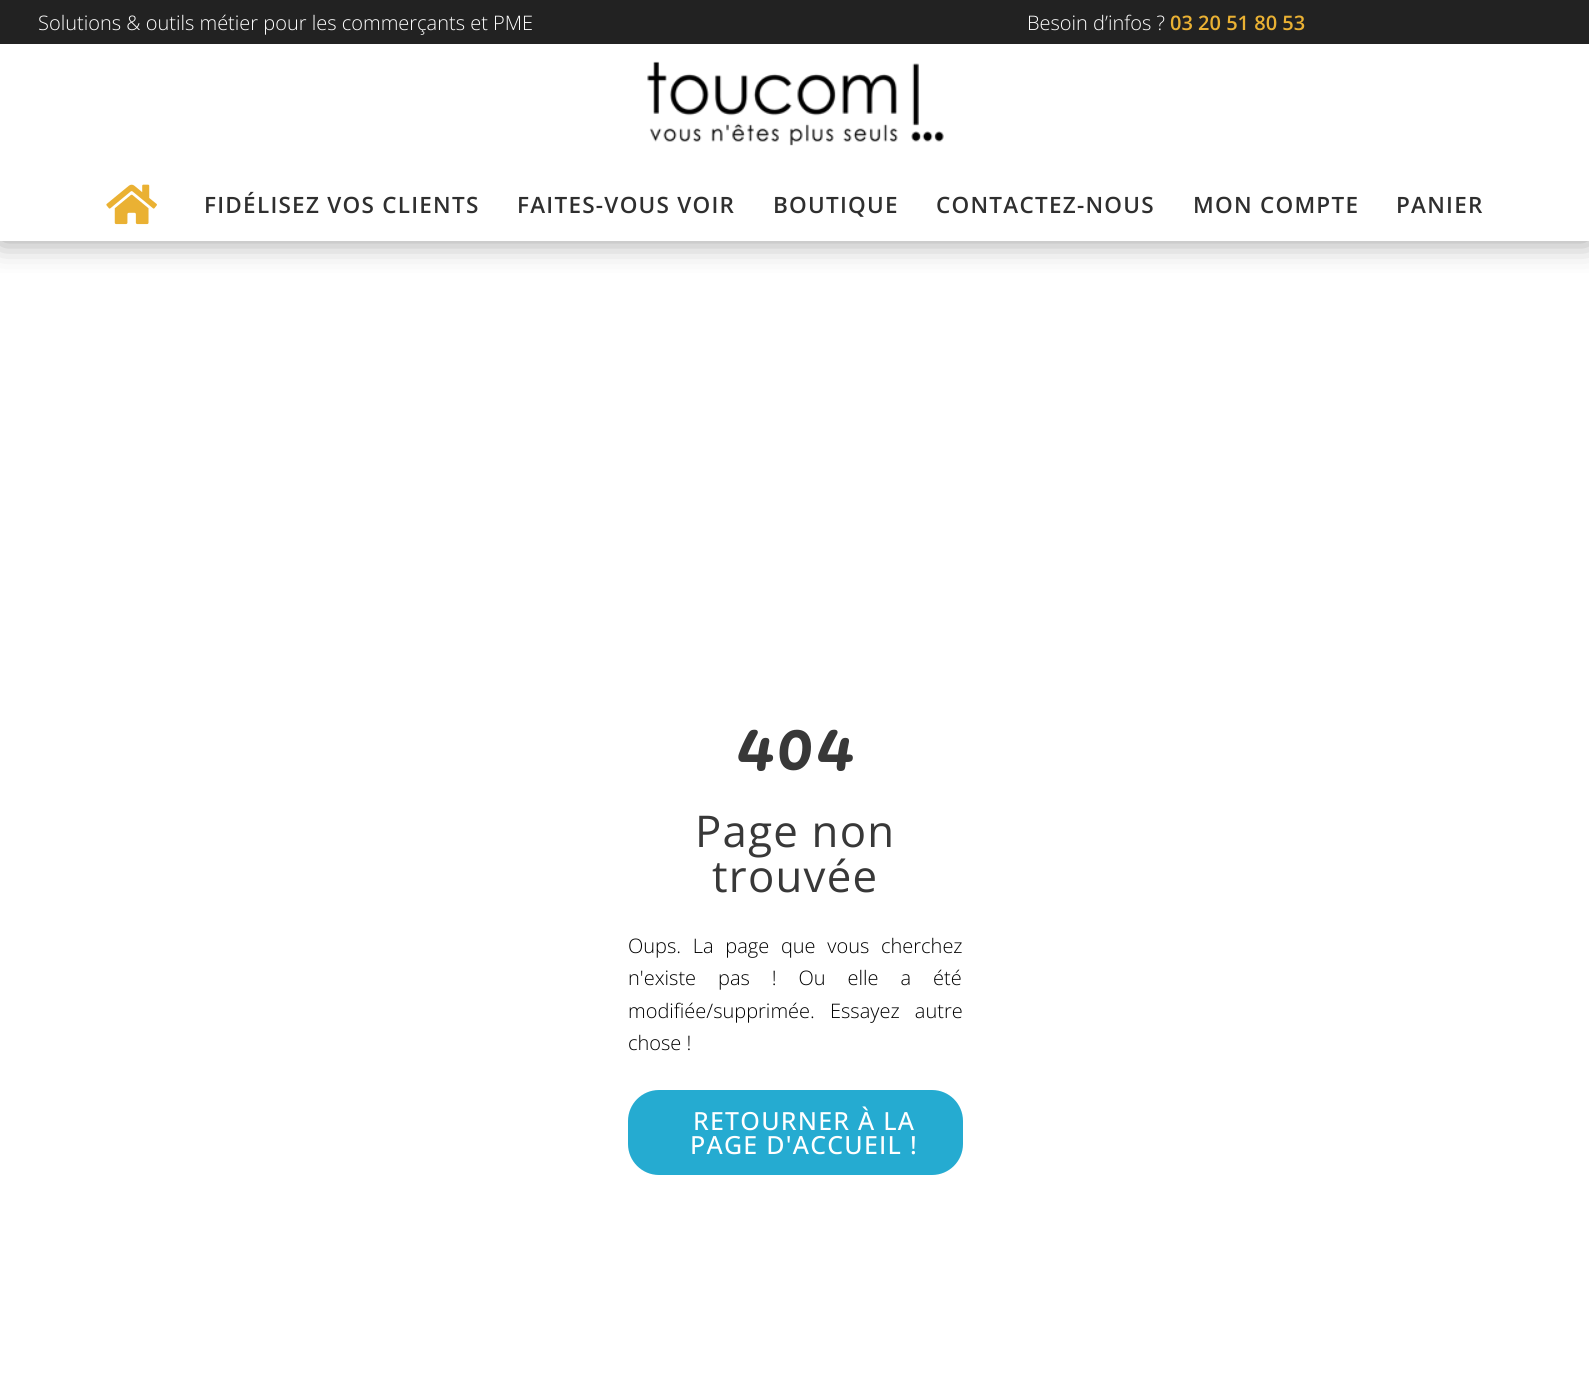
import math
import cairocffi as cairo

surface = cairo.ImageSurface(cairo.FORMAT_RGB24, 1589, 1398)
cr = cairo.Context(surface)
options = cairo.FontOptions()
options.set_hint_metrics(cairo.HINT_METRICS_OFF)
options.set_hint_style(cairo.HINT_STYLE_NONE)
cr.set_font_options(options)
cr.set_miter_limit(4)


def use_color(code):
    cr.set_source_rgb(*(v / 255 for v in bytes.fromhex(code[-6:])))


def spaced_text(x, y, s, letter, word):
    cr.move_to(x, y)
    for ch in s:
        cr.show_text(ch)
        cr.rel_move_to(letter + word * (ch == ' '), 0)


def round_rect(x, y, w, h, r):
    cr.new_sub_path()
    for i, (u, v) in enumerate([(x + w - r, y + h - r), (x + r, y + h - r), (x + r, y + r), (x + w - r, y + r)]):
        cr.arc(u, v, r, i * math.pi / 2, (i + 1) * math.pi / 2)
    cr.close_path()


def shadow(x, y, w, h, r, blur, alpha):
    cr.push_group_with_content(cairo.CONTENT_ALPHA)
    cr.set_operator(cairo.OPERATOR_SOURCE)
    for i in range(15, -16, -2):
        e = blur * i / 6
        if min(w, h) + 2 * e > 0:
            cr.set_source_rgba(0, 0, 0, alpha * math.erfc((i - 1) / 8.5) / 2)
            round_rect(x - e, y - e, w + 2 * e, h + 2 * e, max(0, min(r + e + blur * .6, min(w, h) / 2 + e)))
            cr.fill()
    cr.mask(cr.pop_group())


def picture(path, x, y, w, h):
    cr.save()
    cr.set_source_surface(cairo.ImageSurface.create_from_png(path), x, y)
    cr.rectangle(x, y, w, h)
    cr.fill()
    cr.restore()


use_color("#ffffff")
cr.paint()
cr.save()
cr.rectangle(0, 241, 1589, 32)
cr.clip()
use_color("#999999")
shadow(0, 44, 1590, 197, 0, 15.5, 1)
cr.restore()
use_color("#222222")
cr.rectangle(0, 0, 1589, 44)
cr.fill()
cr.select_font_face("Open Sans Light")
cr.set_font_size(20)
use_color("#ffffff")
cr.move_to(38, 30)
cr.show_text("Solutions & outils métier pour les commerçants et PME")
cr.move_to(1027, 30)
cr.show_text("Besoin d’infos ?")
cr.select_font_face("Open Sans SemiBold")
use_color("#eab133")
cr.move_to(1170, 30)
cr.show_text("03 20 51 80 53")
picture("img1.png", 647, 61, 297, 85)
picture("img2.png", 106, 184, 51, 41)
cr.set_font_size(22.5)
use_color("#2f2f2f")
spaced_text(204, 213, "FIDÉLISEZ VOS CLIENTS", 1.25, 0)
spaced_text(517, 213, "FAITES-VOUS VOIR", 1.25, 0)
spaced_text(773, 213, "BOUTIQUE", 1.25, 0)
spaced_text(936, 213, "CONTACTEZ-NOUS", 1.25, 0)
spaced_text(1193, 213, "MON COMPTE", 1.25, 0)
spaced_text(1396, 213, "PANIER", 1.25, 0)
cr.select_font_face("Pacifico")
cr.set_font_size(69)
use_color("#383838")
spaced_text(735, 770, "404", 1.25, 0)
cr.select_font_face("Open Sans")
cr.set_font_size(43.75)
spaced_text(695, 847, "Page non", 1.25, 0)
spaced_text(712, 892, "trouvée", 1.25, 0)
cr.select_font_face("Open Sans Light")
cr.set_font_size(20)
use_color("#000000")
spaced_text(628, 953, "Oups. La page que vous cherchez", 0, 6.5)
spaced_text(628, 985, "n'existe pas ! Ou elle a été", 0, 16.75)
spaced_text(628, 1018, "modifiée/supprimée. Essayez autre", 0, 10)
cr.move_to(628, 1050)
cr.show_text("chose !")
use_color("#25abd1")
round_rect(628, 1090, 335, 85, 31)
cr.fill()
cr.select_font_face("Open Sans Medium")
cr.set_font_size(25)
use_color("#ffffff")
spaced_text(693, 1130, "RETOURNER À LA", 1.25, 0)
spaced_text(690, 1154, "PAGE D'ACCUEIL !", 1.25, 0)
surface.write_to_png("result.png")
